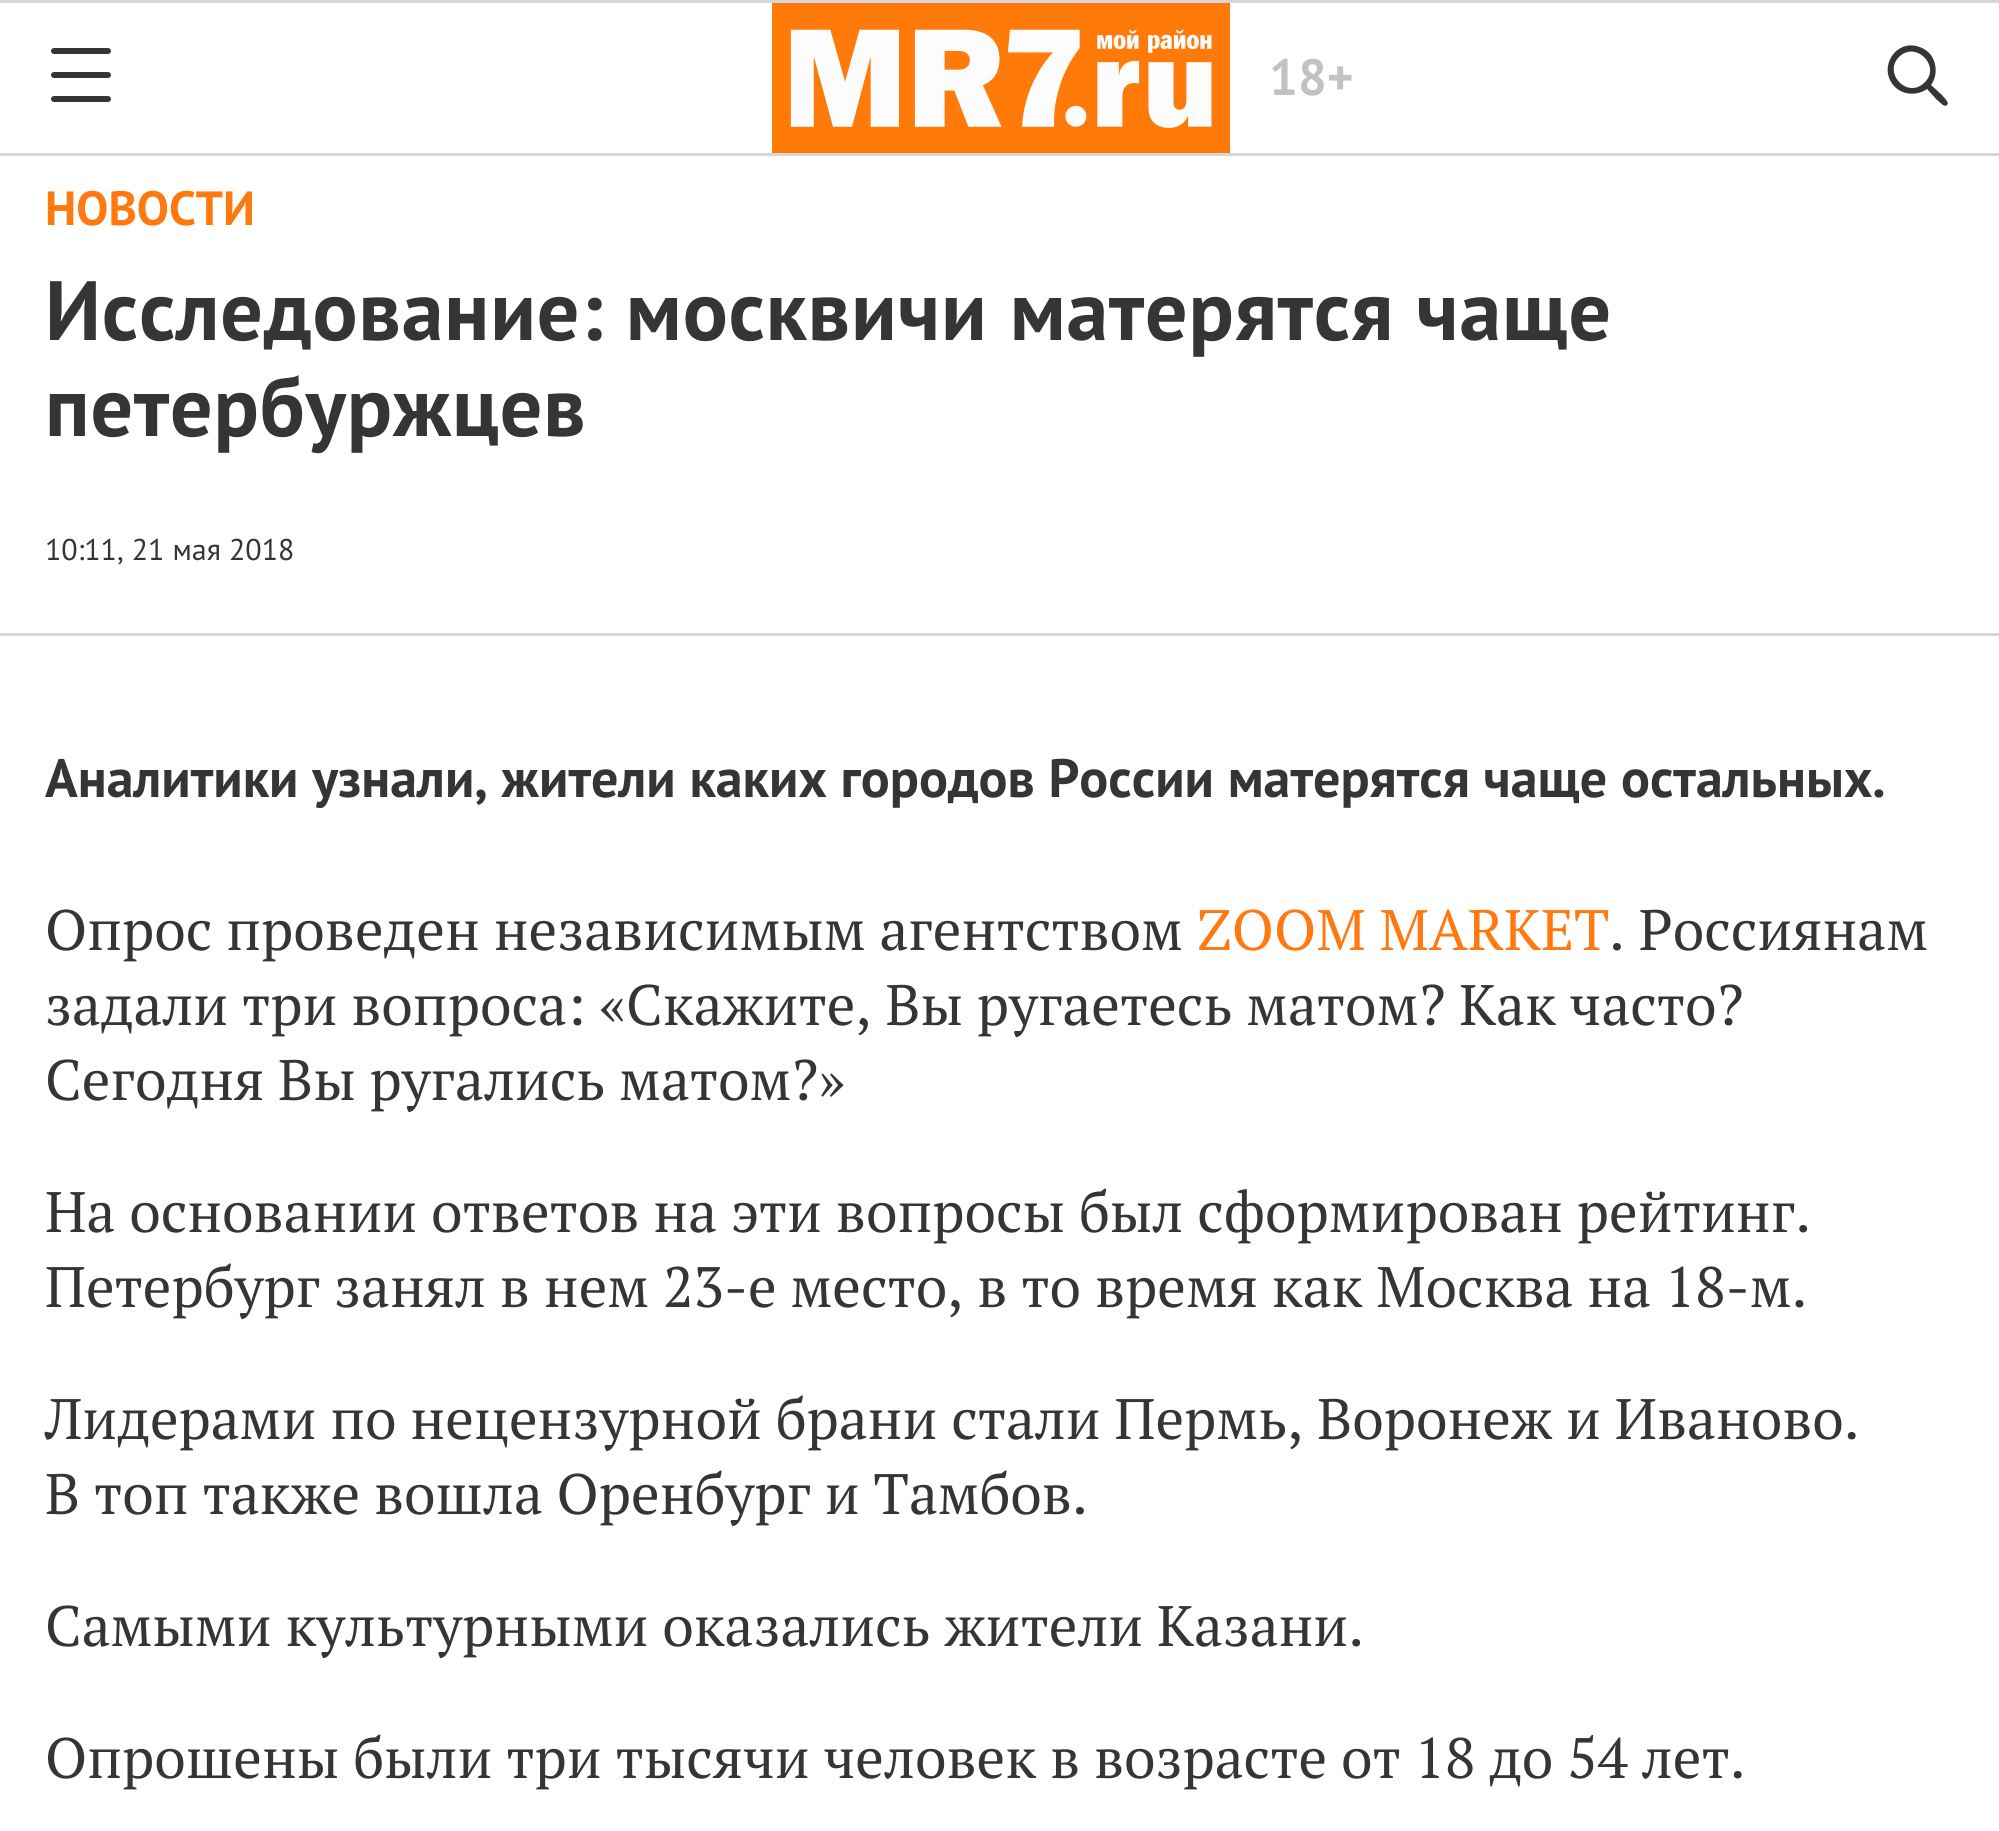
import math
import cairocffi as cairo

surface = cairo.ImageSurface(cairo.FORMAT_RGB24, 1999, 1831)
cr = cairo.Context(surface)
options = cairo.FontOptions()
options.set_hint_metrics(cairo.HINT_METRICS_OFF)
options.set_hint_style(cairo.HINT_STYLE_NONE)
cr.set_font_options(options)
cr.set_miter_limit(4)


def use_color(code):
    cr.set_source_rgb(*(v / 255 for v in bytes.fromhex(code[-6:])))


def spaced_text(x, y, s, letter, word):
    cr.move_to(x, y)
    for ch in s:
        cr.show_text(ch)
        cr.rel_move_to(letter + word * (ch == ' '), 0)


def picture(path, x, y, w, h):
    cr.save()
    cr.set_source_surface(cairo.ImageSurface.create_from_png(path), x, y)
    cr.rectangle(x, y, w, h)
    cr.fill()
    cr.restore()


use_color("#ffffff")
cr.paint()
use_color("#d7d7d7")
cr.rectangle(0, 0, 1999, 3)
cr.fill()
cr.rectangle(0, 153, 1999, 3)
cr.fill()
picture("img1.png", 51, 48, 60, 54)
picture("img2.png", 772, 3, 458, 150)
cr.select_font_face("PT Sans", cairo.FONT_SLANT_NORMAL, cairo.FONT_WEIGHT_BOLD)
cr.set_font_size(51)
use_color("#c2c2c2")
cr.move_to(1269, 95)
cr.show_text("18+")
use_color("#353535")
cr.new_path()
cr.move_to(1895, 87)
cr.curve_to(1903, 95, 1917, 96, 1927, 89)
cr.line_to(1937, 100)
cr.curve_to(1939, 101, 1944, 108, 1947, 105)
cr.curve_to(1950, 102, 1943, 97, 1942, 95)
cr.line_to(1931, 85)
cr.curve_to(1936, 78, 1937, 69, 1934, 61)
cr.curve_to(1932, 55, 1928, 51, 1922, 48)
cr.curve_to(1897, 36, 1876, 68, 1895, 87)
cr.close_path()
cr.move_to(1899, 57)
cr.curve_to(1916, 40, 1942, 67, 1924, 83)
cr.curve_to(1907, 99, 1883, 73, 1899, 57)
cr.close_path()
cr.fill()
use_color("#d7d7d7")
cr.rectangle(0, 633, 1999, 3)
cr.fill()
cr.set_font_size(48)
use_color("#ff7911")
cr.move_to(45, 225)
cr.show_text("НОВОСТИ")
cr.set_font_size(84)
use_color("#353535")
spaced_text(45, 340, "Исследование: москвичи матерятся чаще", 0.85, 0)
spaced_text(45, 436, "петербуржцев", 0.85, 0)
cr.select_font_face("PT Sans")
cr.set_font_size(30)
cr.move_to(45, 560)
cr.show_text("10:11, 21 мая 2018")
cr.select_font_face("PT Sans", cairo.FONT_SLANT_NORMAL, cairo.FONT_WEIGHT_BOLD)
cr.set_font_size(54)
cr.move_to(45, 797)
cr.show_text("Аналитики узнали, жители каких городов России матерятся чаще остальных.")
cr.select_font_face("PT Serif")
cr.set_font_size(57)
cr.move_to(45, 950)
cr.show_text("Опрос проведен независимым агентством")
use_color("#ff7911")
cr.move_to(1197, 950)
cr.show_text("ZOOM MARKET")
use_color("#353535")
cr.move_to(1609, 950)
cr.show_text(". Россиянам")
cr.move_to(45, 1025)
cr.show_text("задали три вопроса: «Скажите, Вы ругаетесь матом? Как часто?")
cr.move_to(45, 1100)
cr.show_text("Сегодня Вы ругались матом?»")
cr.move_to(45, 1232)
cr.show_text("На основании ответов на эти вопросы был сформирован рейтинг.")
cr.move_to(45, 1307)
cr.show_text("Петербург занял в нем 23-е место, в то время как Москва на 18-м.")
cr.move_to(45, 1439)
cr.show_text("Лидерами по нецензурной брани стали Пермь, Воронеж и Иваново.")
cr.move_to(45, 1514)
cr.show_text("В топ также вошла Оренбург и Тамбов.")
cr.move_to(45, 1646)
cr.show_text("Самыми культурными оказались жители Казани.")
cr.move_to(45, 1778)
cr.show_text("Опрошены были три тысячи человек в возрасте от 18 до 54 лет.")
surface.write_to_png("result.png")
